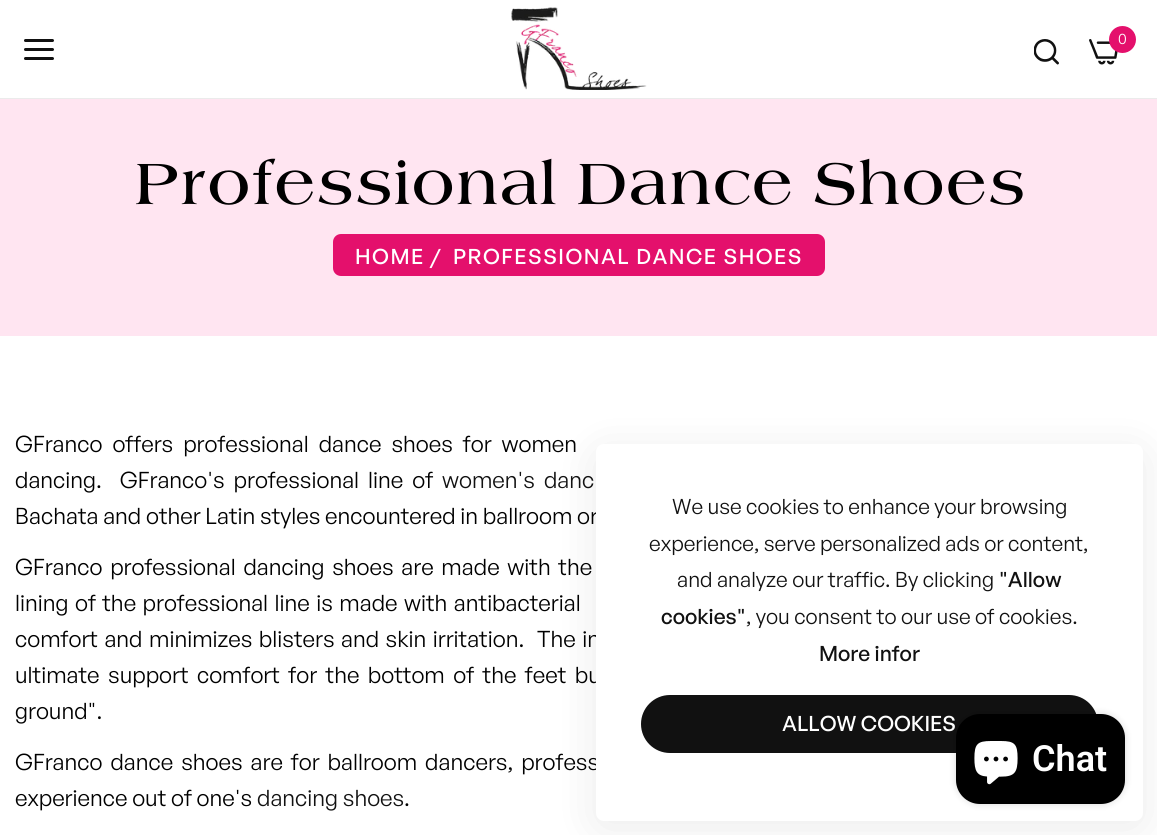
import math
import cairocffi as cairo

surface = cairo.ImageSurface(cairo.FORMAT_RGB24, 1157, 835)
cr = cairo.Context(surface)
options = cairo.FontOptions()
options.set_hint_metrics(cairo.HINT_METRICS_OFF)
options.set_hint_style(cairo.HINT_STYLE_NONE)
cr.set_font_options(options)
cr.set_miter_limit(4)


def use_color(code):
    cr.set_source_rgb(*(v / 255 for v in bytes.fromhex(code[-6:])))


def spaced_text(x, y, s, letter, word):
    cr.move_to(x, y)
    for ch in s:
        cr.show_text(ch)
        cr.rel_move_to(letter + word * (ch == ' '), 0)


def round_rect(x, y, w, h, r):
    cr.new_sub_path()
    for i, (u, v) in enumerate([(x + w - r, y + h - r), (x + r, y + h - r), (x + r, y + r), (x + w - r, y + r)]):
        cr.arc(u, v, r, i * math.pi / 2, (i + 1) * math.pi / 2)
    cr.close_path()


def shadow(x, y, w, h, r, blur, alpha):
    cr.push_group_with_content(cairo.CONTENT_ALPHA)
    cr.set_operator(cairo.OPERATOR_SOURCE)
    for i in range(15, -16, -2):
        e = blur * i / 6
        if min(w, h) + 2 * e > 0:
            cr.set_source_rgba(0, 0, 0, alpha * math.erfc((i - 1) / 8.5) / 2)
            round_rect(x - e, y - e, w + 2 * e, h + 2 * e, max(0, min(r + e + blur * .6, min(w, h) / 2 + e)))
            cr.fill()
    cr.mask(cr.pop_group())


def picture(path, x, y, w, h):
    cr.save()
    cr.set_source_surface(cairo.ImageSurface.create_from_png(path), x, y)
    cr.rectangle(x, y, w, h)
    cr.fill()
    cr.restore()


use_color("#ffffff")
cr.paint()
use_color("#ebebeb")
cr.rectangle(0, 98, 1157, 1)
cr.fill()
picture("img1.png", 24, 39, 30, 21)
picture("img2.png", 511, 7, 136, 83)
picture("img3.png", 1034, 39, 25, 26)
picture("img4.png", 1089, 39, 29, 26)
use_color("#e4106c")
cr.arc(1122.5, 39.5, 13.5, 0, 2 * math.pi)
cr.fill()
cr.select_font_face("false")
cr.set_font_size(15)
use_color("#ffffff")
cr.move_to(1118, 44)
cr.show_text("0")
use_color("#ffe5f1")
cr.rectangle(0, 99, 1157, 237)
cr.fill()
cr.select_font_face("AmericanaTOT", cairo.FONT_SLANT_NORMAL, cairo.FONT_WEIGHT_BOLD)
cr.set_font_size(60)
use_color("#000000")
cr.move_to(133, 204)
cr.show_text("Professional Dance Shoes")
use_color("#e4106c")
round_rect(333, 234, 492, 42, 8)
cr.fill()
cr.select_font_face("General Sans Medium")
cr.set_font_size(21)
use_color("#ffffff")
spaced_text(355, 264, "HOME", 1.5, 0)
spaced_text(430, 264, "/", 1.5, 0)
spaced_text(453, 264, "PROFESSIONAL DANCE SHOES", 1.5, 0)
cr.select_font_face("false")
cr.set_font_size(22.5)
use_color("#000000")
spaced_text(15, 452, "GFranco offers professional dance shoes for women", 0, 5.25)
spaced_text(15, 488, "dancing.  GFranco's professional line of", 0, 4.25)
use_color("#111111")
spaced_text(442, 488, "women's danc", 0, 4.25)
use_color("#000000")
cr.move_to(15, 524)
cr.show_text("Bachata and other Latin styles encountered in ballroom or")
spaced_text(15, 575, "GFranco professional dancing shoes are made with the", 0, 3)
spaced_text(15, 611, "lining of the professional line is made with antibacterial", 0, 1.75)
spaced_text(15, 647, "comfort and minimizes blisters and skin irritation.  The in", 0, 1.75)
spaced_text(15, 683, "ultimate support comfort for the bottom of the feet bu", 0, 3.75)
cr.move_to(15, 719)
cr.show_text("ground\".")
spaced_text(15, 770, "GFranco dance shoes are for ballroom dancers, profess", 0, 3.25)
cr.move_to(15, 806)
cr.show_text("experience out of one's")
use_color("#111111")
cr.move_to(257, 806)
cr.show_text("dancing shoes")
use_color("#000000")
cr.move_to(404, 806)
cr.show_text(".")
use_color("#000000")
shadow(596, 452, 547, 376, 8, 22.5, 0.08)
use_color("#ffffff")
round_rect(596, 444, 547, 377, 8)
cr.fill()
cr.set_font_size(21)
use_color("#111111")
cr.move_to(672, 514)
cr.show_text("We use cookies to enhance your browsing")
cr.move_to(649, 551)
cr.show_text("experience, serve personalized ads or content,")
cr.move_to(677, 587)
cr.show_text("and analyze our traffic. By clicking")
cr.select_font_face("General Sans Medium")
cr.move_to(999, 587)
cr.show_text("\"Allow")
cr.move_to(661, 624)
cr.show_text("cookies\"")
cr.select_font_face("false")
cr.move_to(746, 624)
cr.show_text(", you consent to our use of cookies.")
cr.select_font_face("General Sans Medium")
cr.move_to(819, 661)
cr.show_text("More infor")
round_rect(642, 696, 455, 56, 28)
cr.fill_preserve()
cr.stroke()
use_color("#ffffff")
cr.move_to(782, 731)
cr.show_text("ALLOW COOKIES")
use_color("#000000")
shadow(956, 714, 169, 90, 24, 4, 0.15)
use_color("#000000")
round_rect(956, 714, 169, 90, 24)
cr.fill()
picture("img5.png", 974, 741, 44, 44)
cr.select_font_face("Roboto SemiBold")
cr.set_font_size(36)
use_color("#ffffff")
cr.move_to(1032, 771)
cr.show_text("Chat")
surface.write_to_png("result.png")
